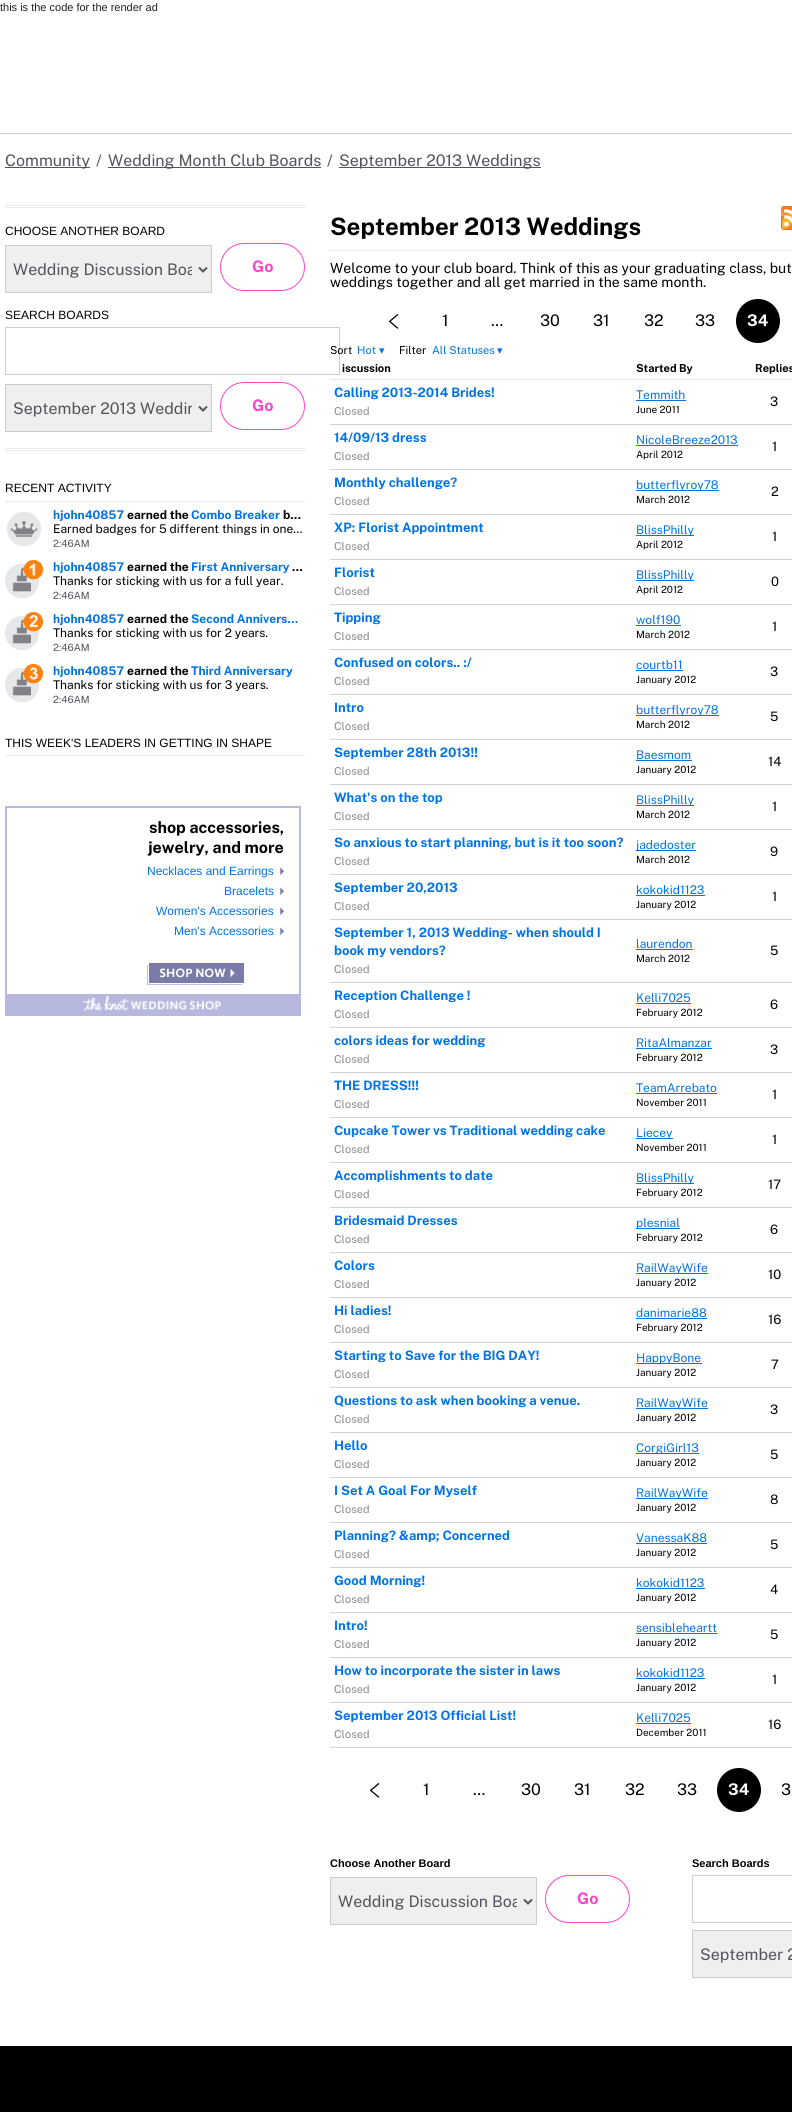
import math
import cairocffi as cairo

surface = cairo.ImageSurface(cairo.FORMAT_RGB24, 792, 2112)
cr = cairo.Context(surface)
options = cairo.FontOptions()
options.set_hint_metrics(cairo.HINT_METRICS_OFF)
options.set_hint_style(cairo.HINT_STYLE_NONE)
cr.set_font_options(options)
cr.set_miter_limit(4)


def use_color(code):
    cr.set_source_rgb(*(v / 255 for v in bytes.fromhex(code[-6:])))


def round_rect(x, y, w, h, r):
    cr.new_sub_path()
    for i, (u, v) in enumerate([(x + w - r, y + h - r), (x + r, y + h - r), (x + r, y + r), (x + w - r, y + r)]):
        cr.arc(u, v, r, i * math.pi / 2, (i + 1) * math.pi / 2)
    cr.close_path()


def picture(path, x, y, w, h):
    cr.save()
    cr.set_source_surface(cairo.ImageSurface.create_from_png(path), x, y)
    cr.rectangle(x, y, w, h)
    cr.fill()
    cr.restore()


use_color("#ffffff")
cr.paint()
cr.select_font_face("Liberation Sans")
cr.set_font_size(11)
use_color("#1f1f1f")
cr.move_to(0, 11)
cr.show_text("this is the code for the render ad")
use_color("#cccccc")
cr.rectangle(0, 133, 792, 1)
cr.fill()
use_color("#51545c")
cr.rectangle(5, 167, 85, 1)
cr.fill()
cr.select_font_face("Public Sans")
cr.set_font_size(16)
cr.move_to(5, 166)
cr.show_text("Community")
cr.move_to(96, 166)
cr.show_text("/")
cr.rectangle(108, 167, 213, 1)
cr.fill()
cr.move_to(108, 166)
cr.show_text("Wedding Month Club Boards")
cr.move_to(327, 166)
cr.show_text("/")
cr.rectangle(339, 167, 202, 1)
cr.fill()
cr.move_to(339, 166)
cr.show_text("September 2013 Weddings")
use_color("#e9e9e9")
cr.rectangle(5, 205, 300, 1)
cr.fill()
cr.rectangle(5, 207, 300, 1)
cr.fill()
cr.rectangle(5, 448, 300, 1)
cr.fill()
cr.rectangle(5, 450, 300, 1)
cr.fill()
cr.select_font_face("Liberation Sans")
cr.set_font_size(12)
use_color("#000000")
cr.move_to(5, 235)
cr.show_text("CHOOSE ANOTHER BOARD")
use_color("#efefef")
cr.rectangle(5.5, 245.5, 206, 47)
cr.fill_preserve()
use_color("#caccd0")
cr.set_line_width(1)
cr.stroke()
cr.new_path()
cr.move_to(199, 267.5)
cr.line_to(203, 271.5)
cr.line_to(207, 267.5)
use_color("#51545c")
cr.set_line_width(2)
cr.stroke()
cr.save()
cr.rectangle(13, 259, 179, 21)
cr.clip()
cr.select_font_face("Public Sans")
cr.set_font_size(16)
cr.move_to(13, 275)
cr.show_text("Wedding Discussion Boa")
cr.restore()
round_rect(220.5, 243.5, 84, 47, 23.5)
use_color("#ff44cb")
cr.set_line_width(1)
cr.stroke()
cr.select_font_face("Public Sans", cairo.FONT_SLANT_NORMAL, cairo.FONT_WEIGHT_BOLD)
cr.set_font_size(16)
cr.move_to(252, 272)
cr.show_text("Go")
cr.select_font_face("Liberation Sans")
cr.set_font_size(12)
use_color("#000000")
cr.move_to(5, 319)
cr.show_text("SEARCH BOARDS")
cr.rectangle(5.5, 327.5, 334, 47)
use_color("#caccd0")
cr.stroke()
use_color("#efefef")
cr.rectangle(5.5, 384.5, 206, 47)
cr.fill_preserve()
use_color("#caccd0")
cr.stroke()
cr.new_path()
cr.move_to(199, 406.5)
cr.line_to(203, 410.5)
cr.line_to(207, 406.5)
use_color("#51545c")
cr.set_line_width(2)
cr.stroke()
cr.save()
cr.rectangle(13, 398, 179, 21)
cr.clip()
cr.select_font_face("Public Sans")
cr.set_font_size(16)
cr.move_to(13, 414)
cr.show_text("September 2013 Weddin")
cr.restore()
round_rect(220.5, 382.5, 84, 47, 23.5)
use_color("#ff44cb")
cr.set_line_width(1)
cr.stroke()
cr.select_font_face("Public Sans", cairo.FONT_SLANT_NORMAL, cairo.FONT_WEIGHT_BOLD)
cr.set_font_size(16)
cr.move_to(252, 411)
cr.show_text("Go")
use_color("#e9e9e9")
cr.rectangle(5, 501, 300, 1)
cr.fill()
cr.select_font_face("Liberation Sans")
cr.set_font_size(12)
use_color("#000000")
cr.move_to(5, 492)
cr.show_text("RECENT ACTIVITY")
picture("img1.png", 6, 512, 36, 34)
cr.select_font_face("Public Sans", cairo.FONT_SLANT_NORMAL, cairo.FONT_WEIGHT_BOLD)
use_color("#0073e6")
cr.move_to(53, 519)
cr.show_text("hjohn40857")
use_color("#000000")
cr.move_to(127, 519)
cr.show_text("earned the")
use_color("#0073e6")
cr.move_to(191, 519)
cr.show_text("Combo Breaker")
use_color("#000000")
cr.move_to(283, 519)
cr.show_text("b…")
cr.select_font_face("Public Sans")
cr.move_to(53, 533)
cr.show_text("Earned badges for 5 different things in one…")
cr.set_font_size(10)
use_color("#51545c")
cr.move_to(53, 547)
cr.show_text("2:46AM")
picture("img2.png", 5, 560, 38, 38)
cr.select_font_face("Public Sans", cairo.FONT_SLANT_NORMAL, cairo.FONT_WEIGHT_BOLD)
cr.set_font_size(12)
use_color("#0073e6")
cr.move_to(53, 571)
cr.show_text("hjohn40857")
use_color("#000000")
cr.move_to(127, 571)
cr.show_text("earned the")
use_color("#0073e6")
cr.move_to(191, 571)
cr.show_text("First Anniversary")
use_color("#000000")
cr.move_to(292, 571)
cr.show_text("…")
cr.select_font_face("Public Sans")
cr.move_to(53, 585)
cr.show_text("Thanks for sticking with us for a full year.")
cr.set_font_size(10)
use_color("#51545c")
cr.move_to(53, 599)
cr.show_text("2:46AM")
picture("img3.png", 5, 612, 38, 38)
cr.select_font_face("Public Sans", cairo.FONT_SLANT_NORMAL, cairo.FONT_WEIGHT_BOLD)
cr.set_font_size(12)
use_color("#0073e6")
cr.move_to(53, 623)
cr.show_text("hjohn40857")
use_color("#000000")
cr.move_to(127, 623)
cr.show_text("earned the")
use_color("#0073e6")
cr.move_to(191, 623)
cr.show_text("Second Annivers…")
cr.select_font_face("Public Sans")
use_color("#000000")
cr.move_to(53, 637)
cr.show_text("Thanks for sticking with us for 2 years.")
cr.set_font_size(10)
use_color("#51545c")
cr.move_to(53, 651)
cr.show_text("2:46AM")
picture("img4.png", 5, 664, 38, 38)
cr.select_font_face("Public Sans", cairo.FONT_SLANT_NORMAL, cairo.FONT_WEIGHT_BOLD)
cr.set_font_size(12)
use_color("#0073e6")
cr.move_to(53, 675)
cr.show_text("hjohn40857")
use_color("#000000")
cr.move_to(127, 675)
cr.show_text("earned the")
use_color("#0073e6")
cr.move_to(191, 675)
cr.show_text("Third Anniversary")
cr.select_font_face("Public Sans")
use_color("#000000")
cr.move_to(53, 689)
cr.show_text("Thanks for sticking with us for 3 years.")
cr.set_font_size(10)
use_color("#51545c")
cr.move_to(53, 703)
cr.show_text("2:46AM")
use_color("#e9e9e9")
cr.rectangle(5, 755, 300, 1)
cr.fill()
cr.select_font_face("Liberation Sans")
cr.set_font_size(12)
use_color("#000000")
cr.move_to(5, 747)
cr.show_text("THIS WEEK'S LEADERS IN GETTING IN SHAPE")
cr.rectangle(6, 807, 294, 208)
use_color("#b6b9dd")
cr.set_line_width(2)
cr.stroke()
cr.select_font_face("Public Sans", cairo.FONT_SLANT_NORMAL, cairo.FONT_WEIGHT_BOLD)
cr.set_font_size(16)
use_color("#000000")
cr.move_to(149, 833)
cr.show_text("shop accessories,")
cr.move_to(148, 853)
cr.show_text("jewelry, and more")
cr.select_font_face("Liberation Sans")
cr.set_font_size(12)
use_color("#0073e6")
cr.move_to(147, 875)
cr.show_text("Necklaces and Earrings")
picture("img5.png", 280, 867, 4, 8)
cr.move_to(224, 895)
cr.show_text("Bracelets")
picture("img5.png", 280, 887, 4, 8)
cr.move_to(156, 915)
cr.show_text("Women's Accessories")
picture("img5.png", 280, 907, 4, 8)
cr.move_to(174, 935)
cr.show_text("Men's Accessories")
picture("img5.png", 280, 927, 4, 8)
picture("img6.png", 147, 963, 97, 22)
use_color("#b6b8de")
cr.rectangle(7, 994, 292, 20)
cr.fill()
picture("img7.png", 83, 996, 139, 15)
picture("img8.png", 781, 206, 11, 24)
use_color("#e9e9e9")
cr.rectangle(330, 250, 462, 1)
cr.fill()
cr.select_font_face("Public Sans", cairo.FONT_SLANT_NORMAL, cairo.FONT_WEIGHT_BOLD)
cr.set_font_size(24)
use_color("#000000")
cr.move_to(330, 235)
cr.show_text("September 2013 Weddings")
cr.select_font_face("Public Sans")
cr.set_font_size(14)
cr.move_to(330, 273)
cr.show_text("Welcome to your club board. Think of this as your graduating class, but")
cr.move_to(330, 287)
cr.show_text("weddings together and all get married in the same month.")
picture("img9.png", 389, 314, 10, 15)
cr.set_font_size(16)
cr.move_to(442, 326)
cr.show_text("1")
cr.move_to(491, 326)
cr.show_text("…")
cr.move_to(540, 326)
cr.show_text("30")
cr.move_to(593, 326)
cr.show_text("31")
cr.move_to(644, 326)
cr.show_text("32")
cr.move_to(695, 326)
cr.show_text("33")
cr.new_path()
cr.arc(758, 321, 22, 0, 2 * math.pi)
cr.fill()
cr.select_font_face("Public Sans", cairo.FONT_SLANT_NORMAL, cairo.FONT_WEIGHT_BOLD)
use_color("#ffffff")
cr.move_to(747, 326)
cr.show_text("34")
cr.select_font_face("Public Sans")
cr.set_font_size(11)
use_color("#000000")
cr.move_to(330, 354)
cr.show_text("Sort")
use_color("#0073e6")
cr.move_to(357, 354)
cr.show_text("Hot")
cr.select_font_face("DejaVu Sans")
cr.move_to(379, 354)
cr.show_text("▾")
cr.select_font_face("Public Sans")
use_color("#000000")
cr.move_to(399, 354)
cr.show_text("Filter")
use_color("#0073e6")
cr.move_to(432, 354)
cr.show_text("All Statuses")
cr.select_font_face("DejaVu Sans")
cr.move_to(497, 354)
cr.show_text("▾")
use_color("#e6e6e6")
cr.rectangle(330, 379, 462, 1)
cr.fill()
cr.select_font_face("Public Sans", cairo.FONT_SLANT_NORMAL, cairo.FONT_WEIGHT_BOLD)
use_color("#000000")
cr.move_to(342, 372)
cr.show_text("iscussion")
cr.move_to(636, 372)
cr.show_text("Started By")
cr.move_to(755, 372)
cr.show_text("Replies")
use_color("#d2d2d2")
cr.rectangle(330, 424, 462, 1)
cr.fill()
cr.set_font_size(13)
use_color("#0073e6")
cr.move_to(334, 397)
cr.show_text("Calling 2013-2014 Brides!")
cr.select_font_face("Public Sans")
cr.set_font_size(11)
use_color("#898989")
cr.move_to(334, 415)
cr.show_text("Closed")
cr.set_font_size(12)
use_color("#0073e6")
cr.move_to(636, 399)
cr.show_text("Temmith")
cr.rectangle(636, 400, 50, 1)
cr.fill()
cr.set_font_size(10)
use_color("#000000")
cr.move_to(636, 413)
cr.show_text("June 2011")
cr.set_font_size(13)
cr.move_to(770, 406)
cr.show_text("3")
use_color("#d2d2d2")
cr.rectangle(330, 469, 462, 1)
cr.fill()
cr.select_font_face("Public Sans", cairo.FONT_SLANT_NORMAL, cairo.FONT_WEIGHT_BOLD)
use_color("#0073e6")
cr.move_to(334, 442)
cr.show_text("14/09/13 dress")
cr.select_font_face("Public Sans")
cr.set_font_size(11)
use_color("#898989")
cr.move_to(334, 460)
cr.show_text("Closed")
cr.set_font_size(12)
use_color("#0073e6")
cr.move_to(636, 444)
cr.show_text("NicoleBreeze2013")
cr.rectangle(636, 445, 102, 1)
cr.fill()
cr.set_font_size(10)
use_color("#000000")
cr.move_to(636, 458)
cr.show_text("April 2012")
cr.set_font_size(13)
cr.move_to(772, 451)
cr.show_text("1")
use_color("#d2d2d2")
cr.rectangle(330, 514, 462, 1)
cr.fill()
cr.select_font_face("Public Sans", cairo.FONT_SLANT_NORMAL, cairo.FONT_WEIGHT_BOLD)
use_color("#0073e6")
cr.move_to(334, 487)
cr.show_text("Monthly challenge?")
cr.select_font_face("Public Sans")
cr.set_font_size(11)
use_color("#898989")
cr.move_to(334, 505)
cr.show_text("Closed")
use_color("#0073e6")
cr.rectangle(636, 490, 83, 1)
cr.fill()
cr.set_font_size(12)
cr.move_to(636, 489)
cr.show_text("butterflyroy78")
cr.set_font_size(10)
use_color("#000000")
cr.move_to(636, 503)
cr.show_text("March 2012")
cr.set_font_size(13)
cr.move_to(771, 496)
cr.show_text("2")
use_color("#d2d2d2")
cr.rectangle(330, 559, 462, 1)
cr.fill()
cr.select_font_face("Public Sans", cairo.FONT_SLANT_NORMAL, cairo.FONT_WEIGHT_BOLD)
use_color("#0073e6")
cr.move_to(334, 532)
cr.show_text("XP: Florist Appointment")
cr.select_font_face("Public Sans")
cr.set_font_size(11)
use_color("#898989")
cr.move_to(334, 550)
cr.show_text("Closed")
use_color("#0073e6")
cr.rectangle(636, 535, 58, 1)
cr.fill()
cr.set_font_size(12)
cr.move_to(636, 534)
cr.show_text("BlissPhilly")
cr.set_font_size(10)
use_color("#000000")
cr.move_to(636, 548)
cr.show_text("April 2012")
cr.set_font_size(13)
cr.move_to(772, 541)
cr.show_text("1")
use_color("#d2d2d2")
cr.rectangle(330, 604, 462, 1)
cr.fill()
cr.select_font_face("Public Sans", cairo.FONT_SLANT_NORMAL, cairo.FONT_WEIGHT_BOLD)
use_color("#0073e6")
cr.move_to(334, 577)
cr.show_text("Florist")
cr.select_font_face("Public Sans")
cr.set_font_size(11)
use_color("#898989")
cr.move_to(334, 595)
cr.show_text("Closed")
use_color("#0073e6")
cr.rectangle(636, 580, 58, 1)
cr.fill()
cr.set_font_size(12)
cr.move_to(636, 579)
cr.show_text("BlissPhilly")
cr.set_font_size(10)
use_color("#000000")
cr.move_to(636, 593)
cr.show_text("April 2012")
cr.set_font_size(13)
cr.move_to(771, 586)
cr.show_text("0")
use_color("#d2d2d2")
cr.rectangle(330, 649, 462, 1)
cr.fill()
cr.select_font_face("Public Sans", cairo.FONT_SLANT_NORMAL, cairo.FONT_WEIGHT_BOLD)
use_color("#0073e6")
cr.move_to(334, 622)
cr.show_text("Tipping")
cr.select_font_face("Public Sans")
cr.set_font_size(11)
use_color("#898989")
cr.move_to(334, 640)
cr.show_text("Closed")
cr.set_font_size(12)
use_color("#0073e6")
cr.move_to(636, 624)
cr.show_text("wolf190")
cr.rectangle(636, 625, 45, 1)
cr.fill()
cr.set_font_size(10)
use_color("#000000")
cr.move_to(636, 638)
cr.show_text("March 2012")
cr.set_font_size(13)
cr.move_to(772, 631)
cr.show_text("1")
use_color("#d2d2d2")
cr.rectangle(330, 694, 462, 1)
cr.fill()
cr.select_font_face("Public Sans", cairo.FONT_SLANT_NORMAL, cairo.FONT_WEIGHT_BOLD)
use_color("#0073e6")
cr.move_to(334, 667)
cr.show_text("Confused on colors.. :/")
cr.select_font_face("Public Sans")
cr.set_font_size(11)
use_color("#898989")
cr.move_to(334, 685)
cr.show_text("Closed")
cr.set_font_size(12)
use_color("#0073e6")
cr.move_to(636, 669)
cr.show_text("courtb11")
cr.rectangle(636, 670, 47, 1)
cr.fill()
cr.set_font_size(10)
use_color("#000000")
cr.move_to(636, 683)
cr.show_text("January 2012")
cr.set_font_size(13)
cr.move_to(770, 676)
cr.show_text("3")
use_color("#d2d2d2")
cr.rectangle(330, 739, 462, 1)
cr.fill()
cr.select_font_face("Public Sans", cairo.FONT_SLANT_NORMAL, cairo.FONT_WEIGHT_BOLD)
use_color("#0073e6")
cr.move_to(334, 712)
cr.show_text("Intro")
cr.select_font_face("Public Sans")
cr.set_font_size(11)
use_color("#898989")
cr.move_to(334, 730)
cr.show_text("Closed")
use_color("#0073e6")
cr.rectangle(636, 715, 83, 1)
cr.fill()
cr.set_font_size(12)
cr.move_to(636, 714)
cr.show_text("butterflyroy78")
cr.set_font_size(10)
use_color("#000000")
cr.move_to(636, 728)
cr.show_text("March 2012")
cr.set_font_size(13)
cr.move_to(770, 721)
cr.show_text("5")
use_color("#d2d2d2")
cr.rectangle(330, 784, 462, 1)
cr.fill()
cr.select_font_face("Public Sans", cairo.FONT_SLANT_NORMAL, cairo.FONT_WEIGHT_BOLD)
use_color("#0073e6")
cr.move_to(334, 757)
cr.show_text("September 28th 2013!!")
cr.select_font_face("Public Sans")
cr.set_font_size(11)
use_color("#898989")
cr.move_to(334, 775)
cr.show_text("Closed")
cr.set_font_size(12)
use_color("#0073e6")
cr.move_to(636, 759)
cr.show_text("Baesmom")
cr.rectangle(636, 760, 56, 1)
cr.fill()
cr.set_font_size(10)
use_color("#000000")
cr.move_to(636, 773)
cr.show_text("January 2012")
cr.set_font_size(13)
cr.move_to(768, 766)
cr.show_text("14")
use_color("#d2d2d2")
cr.rectangle(330, 829, 462, 1)
cr.fill()
cr.select_font_face("Public Sans", cairo.FONT_SLANT_NORMAL, cairo.FONT_WEIGHT_BOLD)
use_color("#0073e6")
cr.move_to(334, 802)
cr.show_text("What's on the top")
cr.select_font_face("Public Sans")
cr.set_font_size(11)
use_color("#898989")
cr.move_to(334, 820)
cr.show_text("Closed")
use_color("#0073e6")
cr.rectangle(636, 805, 58, 1)
cr.fill()
cr.set_font_size(12)
cr.move_to(636, 804)
cr.show_text("BlissPhilly")
cr.set_font_size(10)
use_color("#000000")
cr.move_to(636, 818)
cr.show_text("March 2012")
cr.set_font_size(13)
cr.move_to(772, 811)
cr.show_text("1")
use_color("#d2d2d2")
cr.rectangle(330, 874, 462, 1)
cr.fill()
cr.select_font_face("Public Sans", cairo.FONT_SLANT_NORMAL, cairo.FONT_WEIGHT_BOLD)
use_color("#0073e6")
cr.move_to(334, 847)
cr.show_text("So anxious to start planning, but is it too soon?")
cr.select_font_face("Public Sans")
cr.set_font_size(11)
use_color("#898989")
cr.move_to(334, 865)
cr.show_text("Closed")
use_color("#0073e6")
cr.rectangle(636, 850, 60, 1)
cr.fill()
cr.set_font_size(12)
cr.move_to(636, 849)
cr.show_text("jadedoster")
cr.set_font_size(10)
use_color("#000000")
cr.move_to(636, 863)
cr.show_text("March 2012")
cr.set_font_size(13)
cr.move_to(770, 856)
cr.show_text("9")
use_color("#d2d2d2")
cr.rectangle(330, 919, 462, 1)
cr.fill()
cr.select_font_face("Public Sans", cairo.FONT_SLANT_NORMAL, cairo.FONT_WEIGHT_BOLD)
use_color("#0073e6")
cr.move_to(334, 892)
cr.show_text("September 20,2013")
cr.select_font_face("Public Sans")
cr.set_font_size(11)
use_color("#898989")
cr.move_to(334, 910)
cr.show_text("Closed")
cr.set_font_size(12)
use_color("#0073e6")
cr.move_to(636, 894)
cr.show_text("kokokid1123")
cr.rectangle(636, 895, 69, 1)
cr.fill()
cr.set_font_size(10)
use_color("#000000")
cr.move_to(636, 908)
cr.show_text("January 2012")
cr.set_font_size(13)
cr.move_to(772, 901)
cr.show_text("1")
use_color("#d2d2d2")
cr.rectangle(330, 982, 462, 1)
cr.fill()
cr.select_font_face("Public Sans", cairo.FONT_SLANT_NORMAL, cairo.FONT_WEIGHT_BOLD)
use_color("#0073e6")
cr.move_to(334, 937)
cr.show_text("September 1, 2013 Wedding- when should I")
cr.move_to(334, 955)
cr.show_text("book my vendors?")
cr.select_font_face("Public Sans")
cr.set_font_size(11)
use_color("#898989")
cr.move_to(334, 973)
cr.show_text("Closed")
cr.set_font_size(12)
use_color("#0073e6")
cr.move_to(636, 948)
cr.show_text("laurendon")
cr.rectangle(636, 949, 57, 1)
cr.fill()
cr.set_font_size(10)
use_color("#000000")
cr.move_to(636, 962)
cr.show_text("March 2012")
cr.set_font_size(13)
cr.move_to(770, 955)
cr.show_text("5")
use_color("#d2d2d2")
cr.rectangle(330, 1027, 462, 1)
cr.fill()
cr.select_font_face("Public Sans", cairo.FONT_SLANT_NORMAL, cairo.FONT_WEIGHT_BOLD)
use_color("#0073e6")
cr.move_to(334, 1000)
cr.show_text("Reception Challenge !")
cr.select_font_face("Public Sans")
cr.set_font_size(11)
use_color("#898989")
cr.move_to(334, 1018)
cr.show_text("Closed")
cr.set_font_size(12)
use_color("#0073e6")
cr.move_to(636, 1002)
cr.show_text("Kelli7025")
cr.rectangle(636, 1003, 55, 1)
cr.fill()
cr.set_font_size(10)
use_color("#000000")
cr.move_to(636, 1016)
cr.show_text("February 2012")
cr.set_font_size(13)
cr.move_to(770, 1009)
cr.show_text("6")
use_color("#d2d2d2")
cr.rectangle(330, 1072, 462, 1)
cr.fill()
cr.select_font_face("Public Sans", cairo.FONT_SLANT_NORMAL, cairo.FONT_WEIGHT_BOLD)
use_color("#0073e6")
cr.move_to(334, 1045)
cr.show_text("colors ideas for wedding")
cr.select_font_face("Public Sans")
cr.set_font_size(11)
use_color("#898989")
cr.move_to(334, 1063)
cr.show_text("Closed")
cr.set_font_size(12)
use_color("#0073e6")
cr.move_to(636, 1047)
cr.show_text("RitaAlmanzar")
cr.rectangle(636, 1048, 76, 1)
cr.fill()
cr.set_font_size(10)
use_color("#000000")
cr.move_to(636, 1061)
cr.show_text("February 2012")
cr.set_font_size(13)
cr.move_to(770, 1054)
cr.show_text("3")
use_color("#d2d2d2")
cr.rectangle(330, 1117, 462, 1)
cr.fill()
cr.select_font_face("Public Sans", cairo.FONT_SLANT_NORMAL, cairo.FONT_WEIGHT_BOLD)
use_color("#0073e6")
cr.move_to(334, 1090)
cr.show_text("THE DRESS!!!")
cr.select_font_face("Public Sans")
cr.set_font_size(11)
use_color("#898989")
cr.move_to(334, 1108)
cr.show_text("Closed")
cr.set_font_size(12)
use_color("#0073e6")
cr.move_to(636, 1092)
cr.show_text("TeamArrebato")
cr.rectangle(636, 1093, 81, 1)
cr.fill()
cr.set_font_size(10)
use_color("#000000")
cr.move_to(636, 1106)
cr.show_text("November 2011")
cr.set_font_size(13)
cr.move_to(772, 1099)
cr.show_text("1")
use_color("#d2d2d2")
cr.rectangle(330, 1162, 462, 1)
cr.fill()
cr.select_font_face("Public Sans", cairo.FONT_SLANT_NORMAL, cairo.FONT_WEIGHT_BOLD)
use_color("#0073e6")
cr.move_to(334, 1135)
cr.show_text("Cupcake Tower vs Traditional wedding cake")
cr.select_font_face("Public Sans")
cr.set_font_size(11)
use_color("#898989")
cr.move_to(334, 1153)
cr.show_text("Closed")
use_color("#0073e6")
cr.rectangle(636, 1138, 37, 1)
cr.fill()
cr.set_font_size(12)
cr.move_to(636, 1137)
cr.show_text("Liecey")
cr.set_font_size(10)
use_color("#000000")
cr.move_to(636, 1151)
cr.show_text("November 2011")
cr.set_font_size(13)
cr.move_to(772, 1144)
cr.show_text("1")
use_color("#d2d2d2")
cr.rectangle(330, 1207, 462, 1)
cr.fill()
cr.select_font_face("Public Sans", cairo.FONT_SLANT_NORMAL, cairo.FONT_WEIGHT_BOLD)
use_color("#0073e6")
cr.move_to(334, 1180)
cr.show_text("Accomplishments to date")
cr.select_font_face("Public Sans")
cr.set_font_size(11)
use_color("#898989")
cr.move_to(334, 1198)
cr.show_text("Closed")
use_color("#0073e6")
cr.rectangle(636, 1183, 58, 1)
cr.fill()
cr.set_font_size(12)
cr.move_to(636, 1182)
cr.show_text("BlissPhilly")
cr.set_font_size(10)
use_color("#000000")
cr.move_to(636, 1196)
cr.show_text("February 2012")
cr.set_font_size(13)
cr.move_to(768, 1189)
cr.show_text("17")
use_color("#d2d2d2")
cr.rectangle(330, 1252, 462, 1)
cr.fill()
cr.select_font_face("Public Sans", cairo.FONT_SLANT_NORMAL, cairo.FONT_WEIGHT_BOLD)
use_color("#0073e6")
cr.move_to(334, 1225)
cr.show_text("Bridesmaid Dresses")
cr.select_font_face("Public Sans")
cr.set_font_size(11)
use_color("#898989")
cr.move_to(334, 1243)
cr.show_text("Closed")
use_color("#0073e6")
cr.rectangle(636, 1228, 44, 1)
cr.fill()
cr.set_font_size(12)
cr.move_to(636, 1227)
cr.show_text("plesnial")
cr.set_font_size(10)
use_color("#000000")
cr.move_to(636, 1241)
cr.show_text("February 2012")
cr.set_font_size(13)
cr.move_to(770, 1234)
cr.show_text("6")
use_color("#d2d2d2")
cr.rectangle(330, 1297, 462, 1)
cr.fill()
cr.select_font_face("Public Sans", cairo.FONT_SLANT_NORMAL, cairo.FONT_WEIGHT_BOLD)
use_color("#0073e6")
cr.move_to(334, 1270)
cr.show_text("Colors")
cr.select_font_face("Public Sans")
cr.set_font_size(11)
use_color("#898989")
cr.move_to(334, 1288)
cr.show_text("Closed")
use_color("#0073e6")
cr.rectangle(636, 1273, 72, 1)
cr.fill()
cr.set_font_size(12)
cr.move_to(636, 1272)
cr.show_text("RailWayWife")
cr.set_font_size(10)
use_color("#000000")
cr.move_to(636, 1286)
cr.show_text("January 2012")
cr.set_font_size(13)
cr.move_to(768, 1279)
cr.show_text("10")
use_color("#d2d2d2")
cr.rectangle(330, 1342, 462, 1)
cr.fill()
cr.select_font_face("Public Sans", cairo.FONT_SLANT_NORMAL, cairo.FONT_WEIGHT_BOLD)
use_color("#0073e6")
cr.move_to(334, 1315)
cr.show_text("Hi ladies!")
cr.select_font_face("Public Sans")
cr.set_font_size(11)
use_color("#898989")
cr.move_to(334, 1333)
cr.show_text("Closed")
cr.set_font_size(12)
use_color("#0073e6")
cr.move_to(636, 1317)
cr.show_text("danimarie88")
cr.rectangle(636, 1318, 71, 1)
cr.fill()
cr.set_font_size(10)
use_color("#000000")
cr.move_to(636, 1331)
cr.show_text("February 2012")
cr.set_font_size(13)
cr.move_to(768, 1324)
cr.show_text("16")
use_color("#d2d2d2")
cr.rectangle(330, 1387, 462, 1)
cr.fill()
cr.select_font_face("Public Sans", cairo.FONT_SLANT_NORMAL, cairo.FONT_WEIGHT_BOLD)
use_color("#0073e6")
cr.move_to(334, 1360)
cr.show_text("Starting to Save for the BIG DAY!")
cr.select_font_face("Public Sans")
cr.set_font_size(11)
use_color("#898989")
cr.move_to(334, 1378)
cr.show_text("Closed")
use_color("#0073e6")
cr.rectangle(636, 1363, 66, 1)
cr.fill()
cr.set_font_size(12)
cr.move_to(636, 1362)
cr.show_text("HappyBone")
cr.set_font_size(10)
use_color("#000000")
cr.move_to(636, 1376)
cr.show_text("January 2012")
cr.set_font_size(13)
cr.move_to(771, 1369)
cr.show_text("7")
use_color("#d2d2d2")
cr.rectangle(330, 1432, 462, 1)
cr.fill()
cr.select_font_face("Public Sans", cairo.FONT_SLANT_NORMAL, cairo.FONT_WEIGHT_BOLD)
use_color("#0073e6")
cr.move_to(334, 1405)
cr.show_text("Questions to ask when booking a venue.")
cr.select_font_face("Public Sans")
cr.set_font_size(11)
use_color("#898989")
cr.move_to(334, 1423)
cr.show_text("Closed")
use_color("#0073e6")
cr.rectangle(636, 1408, 72, 1)
cr.fill()
cr.set_font_size(12)
cr.move_to(636, 1407)
cr.show_text("RailWayWife")
cr.set_font_size(10)
use_color("#000000")
cr.move_to(636, 1421)
cr.show_text("January 2012")
cr.set_font_size(13)
cr.move_to(770, 1414)
cr.show_text("3")
use_color("#d2d2d2")
cr.rectangle(330, 1477, 462, 1)
cr.fill()
cr.select_font_face("Public Sans", cairo.FONT_SLANT_NORMAL, cairo.FONT_WEIGHT_BOLD)
use_color("#0073e6")
cr.move_to(334, 1450)
cr.show_text("Hello")
cr.select_font_face("Public Sans")
cr.set_font_size(11)
use_color("#898989")
cr.move_to(334, 1468)
cr.show_text("Closed")
use_color("#0073e6")
cr.rectangle(636, 1453, 63, 1)
cr.fill()
cr.set_font_size(12)
cr.move_to(636, 1452)
cr.show_text("CorgiGirl13")
cr.set_font_size(10)
use_color("#000000")
cr.move_to(636, 1466)
cr.show_text("January 2012")
cr.set_font_size(13)
cr.move_to(770, 1459)
cr.show_text("5")
use_color("#d2d2d2")
cr.rectangle(330, 1522, 462, 1)
cr.fill()
cr.select_font_face("Public Sans", cairo.FONT_SLANT_NORMAL, cairo.FONT_WEIGHT_BOLD)
use_color("#0073e6")
cr.move_to(334, 1495)
cr.show_text("I Set A Goal For Myself")
cr.select_font_face("Public Sans")
cr.set_font_size(11)
use_color("#898989")
cr.move_to(334, 1513)
cr.show_text("Closed")
use_color("#0073e6")
cr.rectangle(636, 1498, 72, 1)
cr.fill()
cr.set_font_size(12)
cr.move_to(636, 1497)
cr.show_text("RailWayWife")
cr.set_font_size(10)
use_color("#000000")
cr.move_to(636, 1511)
cr.show_text("January 2012")
cr.set_font_size(13)
cr.move_to(770, 1504)
cr.show_text("8")
use_color("#d2d2d2")
cr.rectangle(330, 1567, 462, 1)
cr.fill()
cr.select_font_face("Public Sans", cairo.FONT_SLANT_NORMAL, cairo.FONT_WEIGHT_BOLD)
use_color("#0073e6")
cr.move_to(334, 1540)
cr.show_text("Planning? &amp; Concerned")
cr.select_font_face("Public Sans")
cr.set_font_size(11)
use_color("#898989")
cr.move_to(334, 1558)
cr.show_text("Closed")
cr.set_font_size(12)
use_color("#0073e6")
cr.move_to(636, 1542)
cr.show_text("VanessaK88")
cr.rectangle(636, 1543, 71, 1)
cr.fill()
cr.set_font_size(10)
use_color("#000000")
cr.move_to(636, 1556)
cr.show_text("January 2012")
cr.set_font_size(13)
cr.move_to(770, 1549)
cr.show_text("5")
use_color("#d2d2d2")
cr.rectangle(330, 1612, 462, 1)
cr.fill()
cr.select_font_face("Public Sans", cairo.FONT_SLANT_NORMAL, cairo.FONT_WEIGHT_BOLD)
use_color("#0073e6")
cr.move_to(334, 1585)
cr.show_text("Good Morning!")
cr.select_font_face("Public Sans")
cr.set_font_size(11)
use_color("#898989")
cr.move_to(334, 1603)
cr.show_text("Closed")
cr.set_font_size(12)
use_color("#0073e6")
cr.move_to(636, 1587)
cr.show_text("kokokid1123")
cr.rectangle(636, 1588, 69, 1)
cr.fill()
cr.set_font_size(10)
use_color("#000000")
cr.move_to(636, 1601)
cr.show_text("January 2012")
cr.set_font_size(13)
cr.move_to(770, 1594)
cr.show_text("4")
use_color("#d2d2d2")
cr.rectangle(330, 1657, 462, 1)
cr.fill()
cr.select_font_face("Public Sans", cairo.FONT_SLANT_NORMAL, cairo.FONT_WEIGHT_BOLD)
use_color("#0073e6")
cr.move_to(334, 1630)
cr.show_text("Intro!")
cr.select_font_face("Public Sans")
cr.set_font_size(11)
use_color("#898989")
cr.move_to(334, 1648)
cr.show_text("Closed")
cr.set_font_size(12)
use_color("#0073e6")
cr.move_to(636, 1632)
cr.show_text("sensibleheartt")
cr.rectangle(636, 1633, 81, 1)
cr.fill()
cr.set_font_size(10)
use_color("#000000")
cr.move_to(636, 1646)
cr.show_text("January 2012")
cr.set_font_size(13)
cr.move_to(770, 1639)
cr.show_text("5")
use_color("#d2d2d2")
cr.rectangle(330, 1702, 462, 1)
cr.fill()
cr.select_font_face("Public Sans", cairo.FONT_SLANT_NORMAL, cairo.FONT_WEIGHT_BOLD)
use_color("#0073e6")
cr.move_to(334, 1675)
cr.show_text("How to incorporate the sister in laws")
cr.select_font_face("Public Sans")
cr.set_font_size(11)
use_color("#898989")
cr.move_to(334, 1693)
cr.show_text("Closed")
cr.set_font_size(12)
use_color("#0073e6")
cr.move_to(636, 1677)
cr.show_text("kokokid1123")
cr.rectangle(636, 1678, 69, 1)
cr.fill()
cr.set_font_size(10)
use_color("#000000")
cr.move_to(636, 1691)
cr.show_text("January 2012")
cr.set_font_size(13)
cr.move_to(772, 1684)
cr.show_text("1")
use_color("#d2d2d2")
cr.rectangle(330, 1747, 462, 1)
cr.fill()
cr.select_font_face("Public Sans", cairo.FONT_SLANT_NORMAL, cairo.FONT_WEIGHT_BOLD)
use_color("#0073e6")
cr.move_to(334, 1720)
cr.show_text("September 2013 Official List!")
cr.select_font_face("Public Sans")
cr.set_font_size(11)
use_color("#898989")
cr.move_to(334, 1738)
cr.show_text("Closed")
cr.set_font_size(12)
use_color("#0073e6")
cr.move_to(636, 1722)
cr.show_text("Kelli7025")
cr.rectangle(636, 1723, 55, 1)
cr.fill()
cr.set_font_size(10)
use_color("#000000")
cr.move_to(636, 1736)
cr.show_text("December 2011")
cr.set_font_size(13)
cr.move_to(768, 1729)
cr.show_text("16")
picture("img9.png", 370, 1783, 10, 15)
cr.set_font_size(16)
cr.move_to(423, 1795)
cr.show_text("1")
cr.move_to(473, 1795)
cr.show_text("…")
cr.move_to(521, 1795)
cr.show_text("30")
cr.move_to(574, 1795)
cr.show_text("31")
cr.move_to(625, 1795)
cr.show_text("32")
cr.move_to(677, 1795)
cr.show_text("33")
cr.new_path()
cr.arc(739, 1790, 22, 0, 2 * math.pi)
cr.fill()
cr.select_font_face("Public Sans", cairo.FONT_SLANT_NORMAL, cairo.FONT_WEIGHT_BOLD)
use_color("#ffffff")
cr.move_to(728, 1795)
cr.show_text("34")
cr.select_font_face("Public Sans")
use_color("#000000")
cr.move_to(781, 1795)
cr.show_text("3")
cr.select_font_face("Liberation Sans", cairo.FONT_SLANT_NORMAL, cairo.FONT_WEIGHT_BOLD)
cr.set_font_size(11)
cr.move_to(330, 1867)
cr.show_text("Choose Another Board")
cr.move_to(692, 1867)
cr.show_text("Search Boards")
cr.rectangle(692.5, 1875.5, 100, 47)
use_color("#caccd0")
cr.set_line_width(1)
cr.stroke()
use_color("#efefef")
cr.rectangle(692.5, 1930.5, 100, 47)
cr.fill_preserve()
use_color("#caccd0")
cr.stroke()
cr.select_font_face("Public Sans")
cr.set_font_size(16)
use_color("#51545c")
cr.move_to(700, 1960)
cr.show_text("September 2")
use_color("#efefef")
cr.rectangle(330.5, 1877.5, 206, 47)
cr.fill_preserve()
use_color("#caccd0")
cr.stroke()
cr.new_path()
cr.move_to(524, 1899.5)
cr.line_to(528, 1903.5)
cr.line_to(532, 1899.5)
use_color("#51545c")
cr.set_line_width(2)
cr.stroke()
cr.save()
cr.rectangle(338, 1891, 179, 21)
cr.clip()
cr.move_to(338, 1907)
cr.show_text("Wedding Discussion Boa")
cr.restore()
round_rect(545.5, 1875.5, 84, 47, 23.5)
use_color("#ff44cb")
cr.set_line_width(1)
cr.stroke()
cr.select_font_face("Public Sans", cairo.FONT_SLANT_NORMAL, cairo.FONT_WEIGHT_BOLD)
cr.move_to(577, 1904)
cr.show_text("Go")
use_color("#000000")
cr.rectangle(0, 2046, 792, 66)
cr.fill()
surface.write_to_png("result.png")
